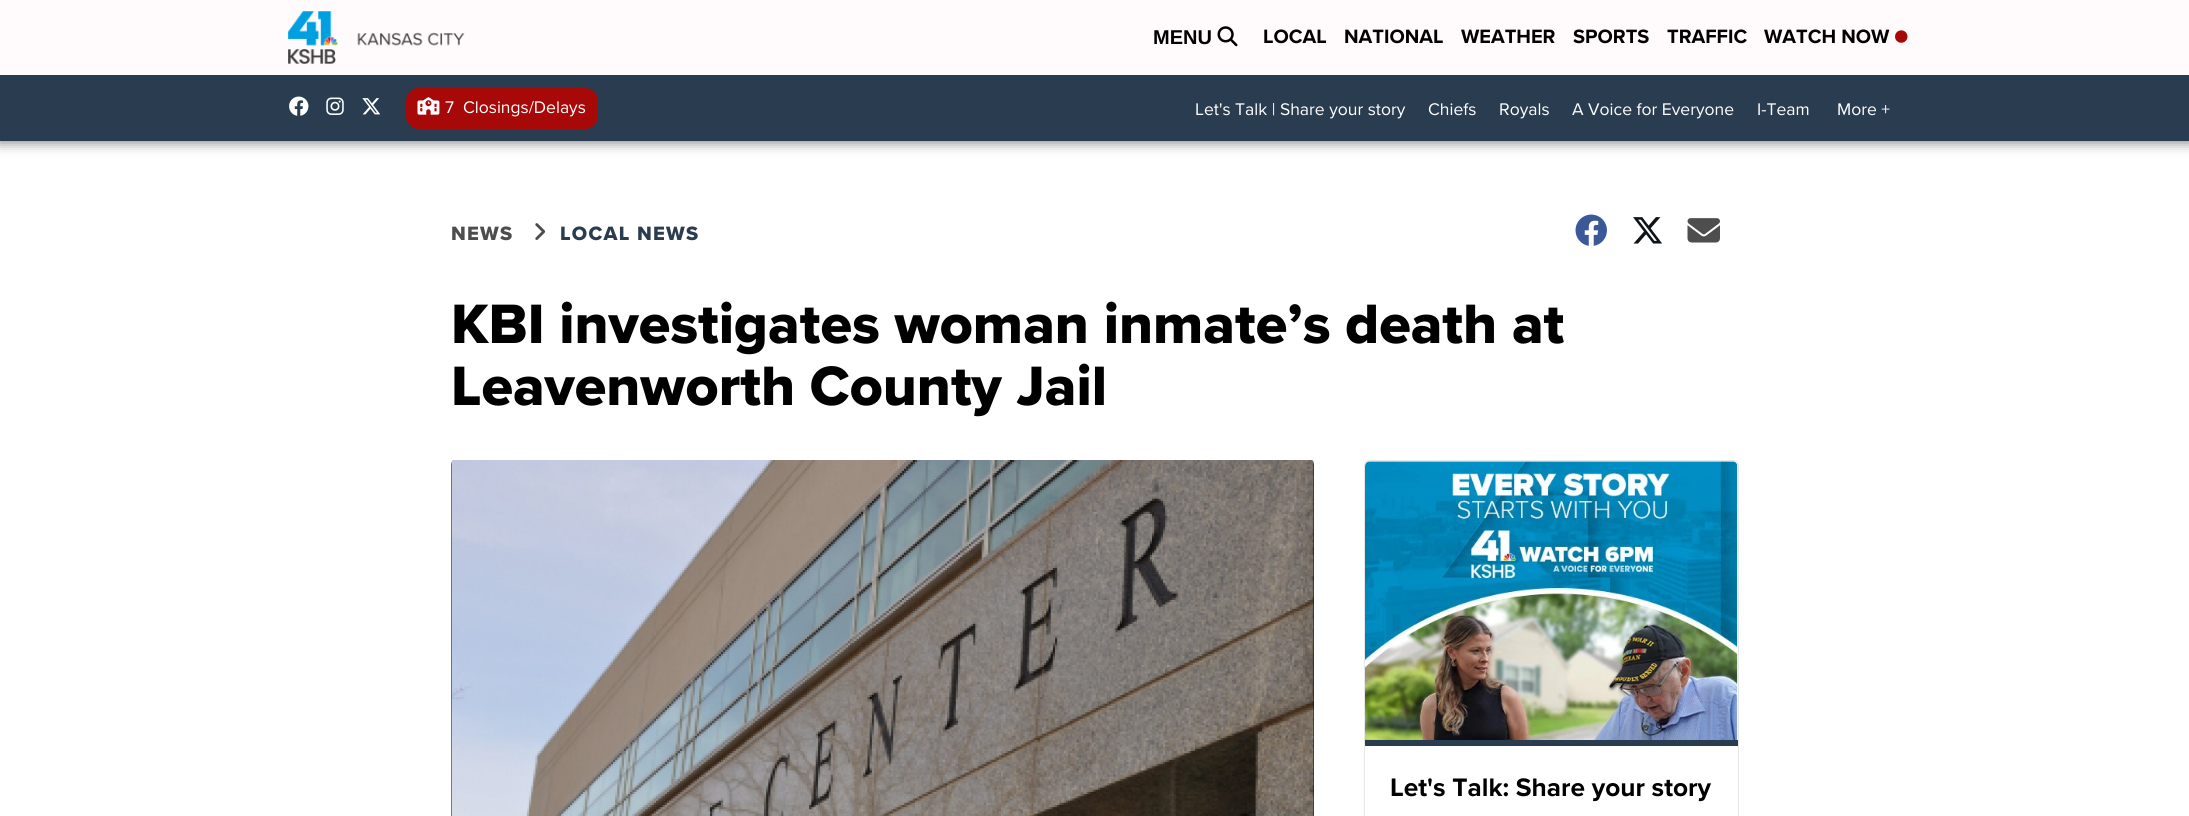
import math
import cairocffi as cairo

surface = cairo.ImageSurface(cairo.FORMAT_RGB24, 2189, 816)
cr = cairo.Context(surface)
options = cairo.FontOptions()
options.set_hint_metrics(cairo.HINT_METRICS_OFF)
options.set_hint_style(cairo.HINT_STYLE_NONE)
cr.set_font_options(options)
cr.set_miter_limit(4)


def use_color(code):
    cr.set_source_rgb(*(v / 255 for v in bytes.fromhex(code[-6:])))


def spaced_text(x, y, s, letter, word):
    cr.move_to(x, y)
    for ch in s:
        cr.show_text(ch)
        cr.rel_move_to(letter + word * (ch == ' '), 0)


def round_rect(x, y, w, h, r):
    cr.new_sub_path()
    for i, (u, v) in enumerate([(x + w - r, y + h - r), (x + r, y + h - r), (x + r, y + r), (x + w - r, y + r)]):
        cr.arc(u, v, r, i * math.pi / 2, (i + 1) * math.pi / 2)
    cr.close_path()


def shadow(x, y, w, h, r, blur, alpha):
    cr.push_group_with_content(cairo.CONTENT_ALPHA)
    cr.set_operator(cairo.OPERATOR_SOURCE)
    for i in range(15, -16, -2):
        e = blur * i / 6
        if min(w, h) + 2 * e > 0:
            cr.set_source_rgba(0, 0, 0, alpha * math.erfc((i - 1) / 8.5) / 2)
            round_rect(x - e, y - e, w + 2 * e, h + 2 * e, max(0, min(r + e + blur * .6, min(w, h) / 2 + e)))
            cr.fill()
    cr.mask(cr.pop_group())


def picture(path, x, y, w, h):
    cr.save()
    cr.set_source_surface(cairo.ImageSurface.create_from_png(path), x, y)
    cr.rectangle(x, y, w, h)
    cr.fill()
    cr.restore()


use_color("#ffffff")
cr.paint()
use_color("#616161")
shadow(-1, -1, 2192, 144, 0, 6, 0.76)
use_color("#fffbfd")
cr.rectangle(0, 0, 2189, 75)
cr.fill()
picture("img1.png", 288, 11, 177, 53)
cr.select_font_face("Liberation Sans", cairo.FONT_SLANT_NORMAL, cairo.FONT_WEIGHT_BOLD)
cr.set_font_size(20)
use_color("#000000")
cr.move_to(1153, 44)
cr.show_text("MENU")
picture("img2.png", 1217, 26, 21, 21)
cr.select_font_face("Proxima Nova", cairo.FONT_SLANT_NORMAL, cairo.FONT_WEIGHT_BOLD)
cr.move_to(1263, 43)
cr.show_text("LOCAL")
cr.move_to(1344, 43)
cr.show_text("NATIONAL")
cr.move_to(1461, 43)
cr.show_text("WEATHER")
cr.move_to(1573, 43)
cr.show_text("SPORTS")
cr.move_to(1667, 43)
cr.show_text("TRAFFIC")
cr.move_to(1764, 43)
cr.show_text("WATCH NOW")
picture("img3.png", 1895, 30, 13, 13)
use_color("#2a3c4f")
cr.rectangle(0, 75, 2189, 66)
cr.fill()
picture("img4.png", 289, 96, 20, 20)
picture("img5.png", 326, 97, 18, 18)
picture("img6.png", 362, 98, 19, 17)
use_color("#a70808")
round_rect(406, 88, 192, 41, 13)
cr.fill()
picture("img7.png", 417, 97, 23, 18)
cr.select_font_face("Proxima Nova")
cr.set_font_size(17.5)
use_color("#ffffff")
cr.move_to(445, 113)
cr.show_text("7")
cr.move_to(463, 113)
cr.show_text("Closings/Delays")
cr.move_to(1195, 115)
cr.show_text("Let's Talk | Share your story")
cr.move_to(1428, 115)
cr.show_text("Chiefs")
cr.move_to(1499, 115)
cr.show_text("Royals")
cr.move_to(1572, 115)
cr.show_text("A Voice for Everyone")
cr.move_to(1757, 115)
cr.show_text("I-Team")
cr.move_to(1837, 115)
cr.show_text("More +")
cr.select_font_face("Proxima Nova ExtraBold")
cr.set_font_size(20)
use_color("#4d4d4d")
spaced_text(451, 240, "NEWS", 1.25, 0)
picture("img8.png", 535, 223, 11, 17)
use_color("#2a3c4f")
spaced_text(560, 240, "LOCAL NEWS", 1.25, 0)
picture("img9.png", 1575, 214, 32, 32)
picture("img10.png", 1633, 217, 29, 27)
picture("img11.png", 1687, 218, 33, 25)
cr.set_font_size(57.5)
use_color("#000000")
cr.move_to(451, 343)
cr.show_text("KBI investigates woman inmate’s death at")
cr.move_to(451, 405)
cr.show_text("Leavenworth County Jail")
round_rect(451, 460, 863, 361, 5)
cr.fill()
picture("img12.png", 451, 460, 863, 356)
round_rect(1364.5, 460.5, 374, 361, 4.5)
use_color("#e7e7e7")
cr.set_line_width(1)
cr.stroke()
picture("img13.png", 1365, 461, 373, 279)
use_color("#2a3c4f")
cr.rectangle(1365, 740, 373, 6)
cr.fill()
cr.select_font_face("Proxima Nova", cairo.FONT_SLANT_NORMAL, cairo.FONT_WEIGHT_BOLD)
cr.set_font_size(26.25)
use_color("#000000")
cr.move_to(1390, 796)
cr.show_text("Let's Talk: Share your story")
surface.write_to_png("result.png")
